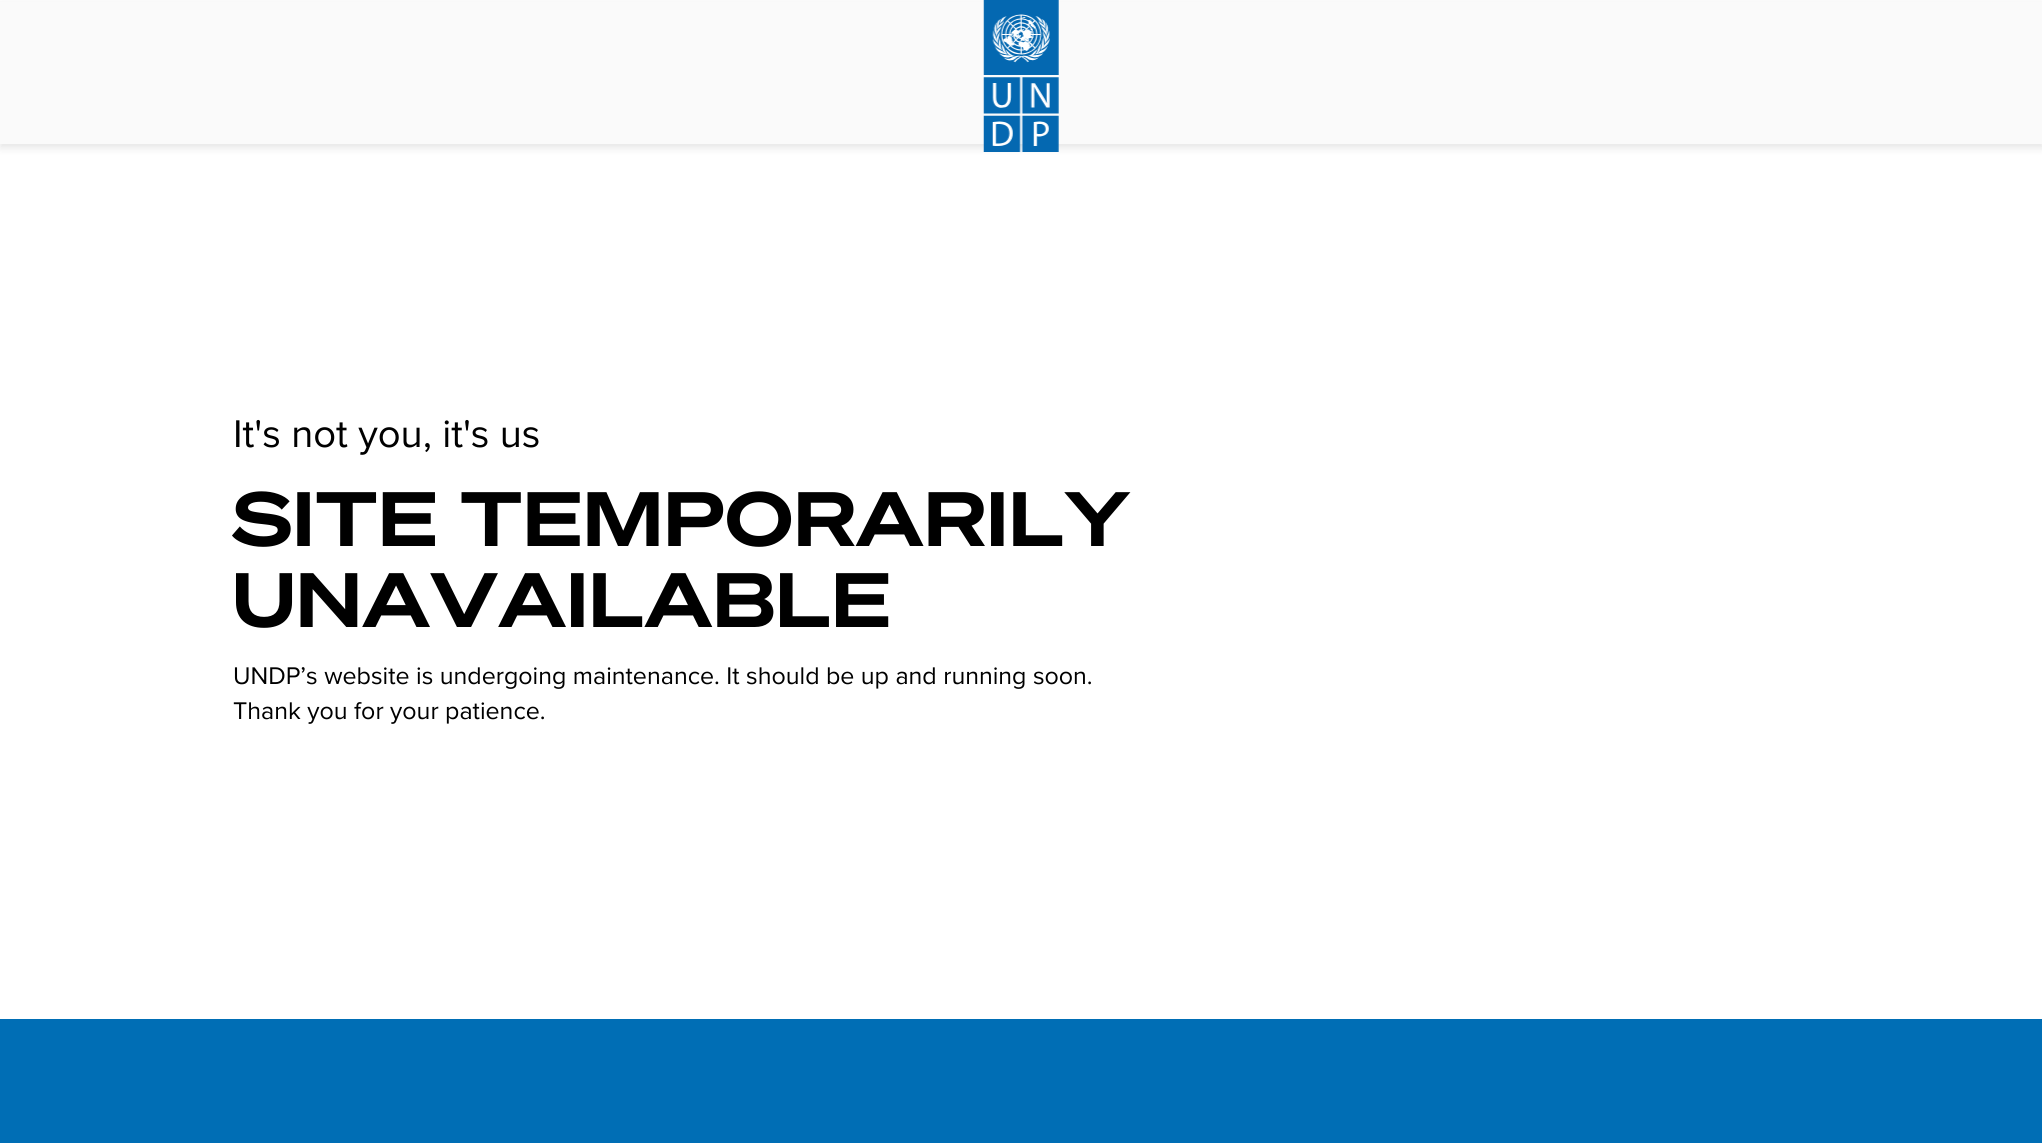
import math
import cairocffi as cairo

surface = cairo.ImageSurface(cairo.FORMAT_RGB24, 2042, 1143)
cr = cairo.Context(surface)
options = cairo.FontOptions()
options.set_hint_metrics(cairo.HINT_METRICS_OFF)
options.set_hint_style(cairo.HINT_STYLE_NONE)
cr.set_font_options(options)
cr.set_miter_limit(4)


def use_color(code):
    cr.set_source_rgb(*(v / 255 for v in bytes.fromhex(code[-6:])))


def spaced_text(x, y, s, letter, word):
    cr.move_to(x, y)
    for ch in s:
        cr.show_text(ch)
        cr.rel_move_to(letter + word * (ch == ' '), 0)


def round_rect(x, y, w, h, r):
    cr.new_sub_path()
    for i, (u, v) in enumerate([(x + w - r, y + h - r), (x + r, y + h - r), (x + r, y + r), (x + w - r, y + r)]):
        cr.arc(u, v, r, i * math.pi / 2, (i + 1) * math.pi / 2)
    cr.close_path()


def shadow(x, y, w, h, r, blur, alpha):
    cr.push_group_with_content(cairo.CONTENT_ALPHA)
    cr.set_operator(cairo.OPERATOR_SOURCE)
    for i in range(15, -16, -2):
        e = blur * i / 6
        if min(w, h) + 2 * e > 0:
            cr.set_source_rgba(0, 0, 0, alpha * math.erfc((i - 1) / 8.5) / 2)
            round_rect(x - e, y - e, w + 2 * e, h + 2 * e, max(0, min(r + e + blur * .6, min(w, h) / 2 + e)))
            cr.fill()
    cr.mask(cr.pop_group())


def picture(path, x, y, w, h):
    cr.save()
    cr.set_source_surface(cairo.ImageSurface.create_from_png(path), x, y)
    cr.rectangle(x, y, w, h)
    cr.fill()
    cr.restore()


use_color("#ffffff")
cr.paint()
use_color("#000000")
shadow(0, 4, 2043, 144, 0, 4, 0.1)
use_color("#fafafa")
cr.rectangle(0, 2, 2042, 142)
cr.fill()
picture("img1.png", 983, 0, 76, 152)
cr.select_font_face("Proxima Nova")
cr.set_font_size(40)
use_color("#000000")
cr.move_to(233, 447)
cr.show_text("It's not you, it's us")
cr.select_font_face("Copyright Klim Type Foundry", cairo.FONT_SLANT_NORMAL, cairo.FONT_WEIGHT_BOLD)
cr.set_font_size(75)
spaced_text(233, 546, "SITE TEMPORARILY", 1.25, 0)
spaced_text(233, 627, "UNAVAILABLE", 1.25, 0)
cr.select_font_face("Proxima Nova")
cr.set_font_size(25)
cr.move_to(233, 684)
cr.show_text("UNDP’s website is undergoing maintenance. It should be up and running soon.")
cr.move_to(233, 719)
cr.show_text("Thank you for your patience.")
use_color("#006eb5")
cr.rectangle(0, 1019, 2042, 124)
cr.fill()
surface.write_to_png("result.png")
